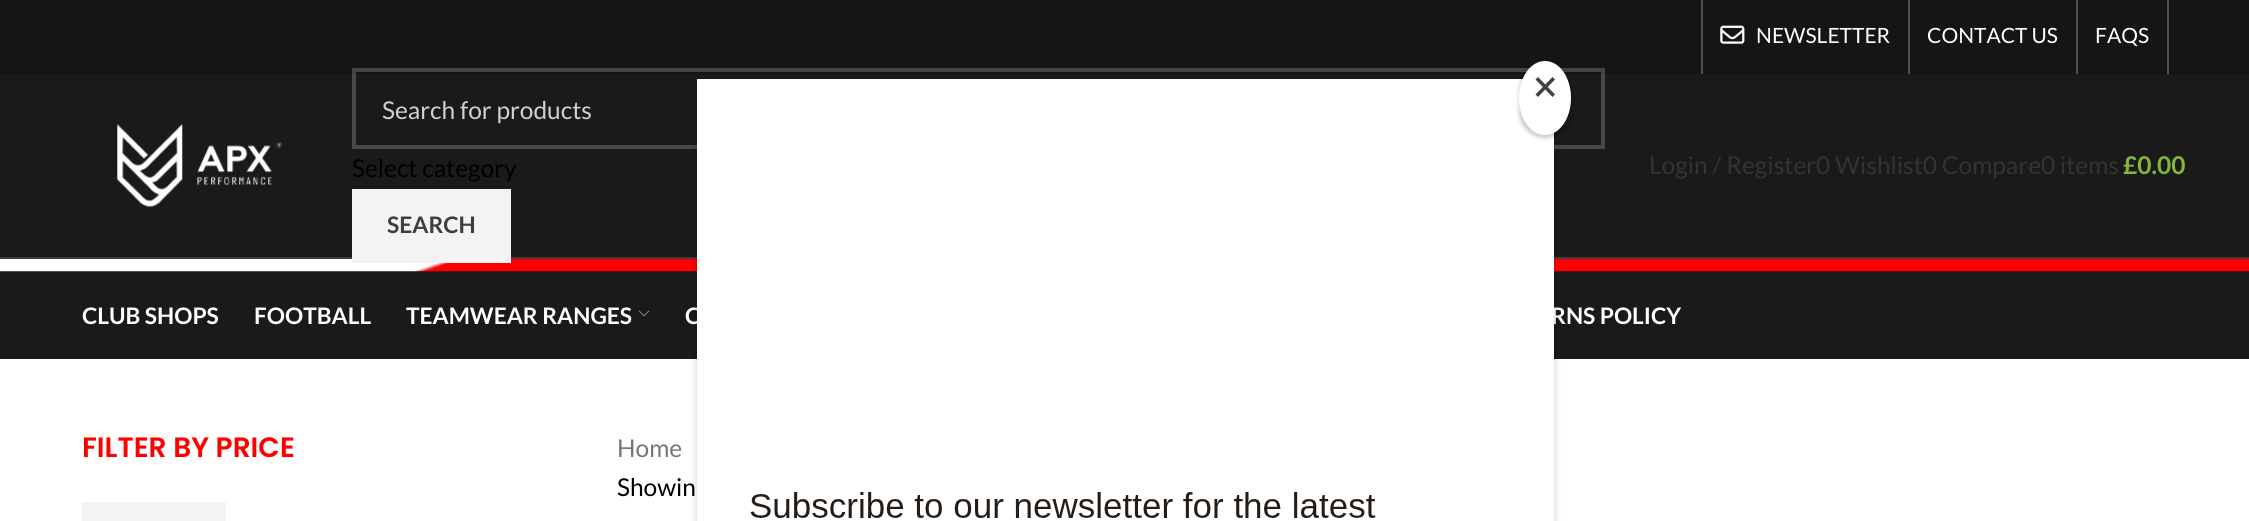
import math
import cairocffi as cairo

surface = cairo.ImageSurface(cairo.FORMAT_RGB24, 2249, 521)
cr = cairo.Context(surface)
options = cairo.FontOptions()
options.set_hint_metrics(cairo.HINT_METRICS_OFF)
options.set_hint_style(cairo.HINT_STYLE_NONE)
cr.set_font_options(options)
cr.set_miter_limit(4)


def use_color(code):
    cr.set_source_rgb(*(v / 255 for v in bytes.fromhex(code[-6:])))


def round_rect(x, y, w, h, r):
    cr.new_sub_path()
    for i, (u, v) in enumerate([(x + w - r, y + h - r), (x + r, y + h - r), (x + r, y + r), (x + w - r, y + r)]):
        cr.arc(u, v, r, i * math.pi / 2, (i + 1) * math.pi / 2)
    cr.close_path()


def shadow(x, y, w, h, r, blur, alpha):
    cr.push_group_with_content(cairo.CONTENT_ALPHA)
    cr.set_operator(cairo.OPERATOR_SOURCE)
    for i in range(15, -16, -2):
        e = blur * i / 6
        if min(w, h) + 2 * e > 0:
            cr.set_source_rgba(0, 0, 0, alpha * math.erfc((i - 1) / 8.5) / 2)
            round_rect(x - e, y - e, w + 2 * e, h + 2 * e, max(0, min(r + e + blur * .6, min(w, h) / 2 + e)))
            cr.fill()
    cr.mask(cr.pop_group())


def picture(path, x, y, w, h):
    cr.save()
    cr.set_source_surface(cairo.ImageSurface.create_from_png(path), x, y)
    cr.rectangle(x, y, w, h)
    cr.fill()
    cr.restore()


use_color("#ffffff")
cr.paint()
use_color("#151515")
cr.rectangle(0, 0, 2249, 74)
cr.fill()
use_color("#505050")
cr.rectangle(1701, 0, 2, 74)
cr.fill()
picture("img1.png", 1720, 25, 25, 19)
cr.select_font_face("Lato")
cr.set_font_size(21)
use_color("#ffffff")
cr.move_to(1756, 43)
cr.show_text("NEWSLETTER")
use_color("#505050")
cr.rectangle(1908, 0, 2, 74)
cr.fill()
use_color("#ffffff")
cr.move_to(1927, 43)
cr.show_text("CONTACT US")
use_color("#505050")
cr.rectangle(2076, 0, 2, 74)
cr.fill()
use_color("#ffffff")
cr.move_to(2095, 43)
cr.show_text("FAQS")
use_color("#505050")
cr.rectangle(2167, 0, 2, 74)
cr.fill()
use_color("#1a1a1a")
cr.rectangle(0, 74, 2249, 183)
cr.fill()
use_color("#3c3c3c")
cr.rectangle(0, 257, 2249, 2)
cr.fill()
picture("img2.png", 117, 124, 166, 83)
cr.rectangle(354, 70, 1249, 77)
cr.set_source_rgba(1, 1, 1, 0.2)
cr.set_line_width(4)
cr.stroke()
cr.set_font_size(24.5)
use_color("#d1d1d1")
cr.move_to(382, 119)
cr.show_text("Search for products")
use_color("#000000")
cr.move_to(352, 177)
cr.show_text("Select category")
use_color("#1a1a1a")
cr.rectangle(0, 271, 2249, 88)
cr.fill()
picture("img3.png", 0, 259, 2249, 13)
use_color("#f3f3f3")
cr.rectangle(352, 189, 159, 74)
cr.fill()
cr.select_font_face("Lato", cairo.FONT_SLANT_NORMAL, cairo.FONT_WEIGHT_BOLD)
cr.set_font_size(22.75)
use_color("#3e3e3e")
cr.move_to(387, 233)
cr.show_text("SEARCH")
cr.select_font_face("Lato")
cr.set_font_size(24.5)
use_color("#333333")
cr.move_to(1649, 174)
cr.show_text("Login / Register0 Wishlist0 Compare0 items")
cr.select_font_face("Lato", cairo.FONT_SLANT_NORMAL, cairo.FONT_WEIGHT_BOLD)
use_color("#83b735")
cr.move_to(2123, 174)
cr.show_text("£0.00")
cr.set_font_size(22.75)
use_color("#ffffff")
cr.move_to(82, 324)
cr.show_text("CLUB SHOPS")
cr.move_to(254, 324)
cr.show_text("FOOTBALL")
cr.move_to(406, 324)
cr.show_text("TEAMWEAR RANGES")
picture("img4.png", 638, 310, 12, 7)
cr.move_to(685, 324)
cr.show_text("C")
cr.move_to(1551, 324)
cr.show_text("RNS POLICY")
cr.select_font_face("Poppins SemiBold")
cr.set_font_size(28)
use_color("#ff0000")
cr.move_to(82, 457)
cr.show_text("FILTER BY PRICE")
use_color("#f3f3f3")
cr.rectangle(82, 502, 144, 19)
cr.fill()
cr.select_font_face("Lato")
cr.set_font_size(24.5)
use_color("#767676")
cr.move_to(617, 457)
cr.show_text("Home")
use_color("#000000")
cr.move_to(617, 496)
cr.show_text("Showin")
cr.save()
cr.set_fill_rule(cairo.FILL_RULE_EVEN_ODD)
cr.new_path()
cr.move_to(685, 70)
cr.line_to(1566, 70)
cr.line_to(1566, 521)
cr.line_to(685, 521)
cr.close_path()
cr.move_to(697, 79)
cr.line_to(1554, 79)
cr.line_to(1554, 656)
cr.line_to(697, 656)
cr.close_path()
cr.clip()
use_color("#000000")
shadow(697, 82, 857, 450, 0, 3.5, 0.2)
cr.restore()
picture("img5.png", 697, 79, 857, 439)
use_color("#000000")
shadow(1519, 65, 53, 73, 26.5, 2, 0.2)
use_color("#ffffff")
cr.new_path()
cr.move_to(1545, 61)
cr.curve_to(1559.5, 61, 1571, 77.5, 1571, 98)
cr.curve_to(1571, 118.5, 1559.5, 135, 1545, 135)
cr.curve_to(1530.5, 135, 1519, 118.5, 1519, 98)
cr.curve_to(1519, 77.5, 1530.5, 61, 1545, 61)
cr.close_path()
cr.fill()
use_color("#414141")
cr.new_path()
cr.move_to(1552.5, 77)
cr.line_to(1555, 79.5)
cr.line_to(1538, 97)
cr.line_to(1535.5, 94.5)
cr.close_path()
cr.fill()
cr.new_path()
cr.move_to(1535.5, 79.5)
cr.line_to(1538, 77)
cr.line_to(1555, 94.5)
cr.line_to(1552.5, 97)
cr.close_path()
cr.fill()
surface.write_to_png("result.png")
